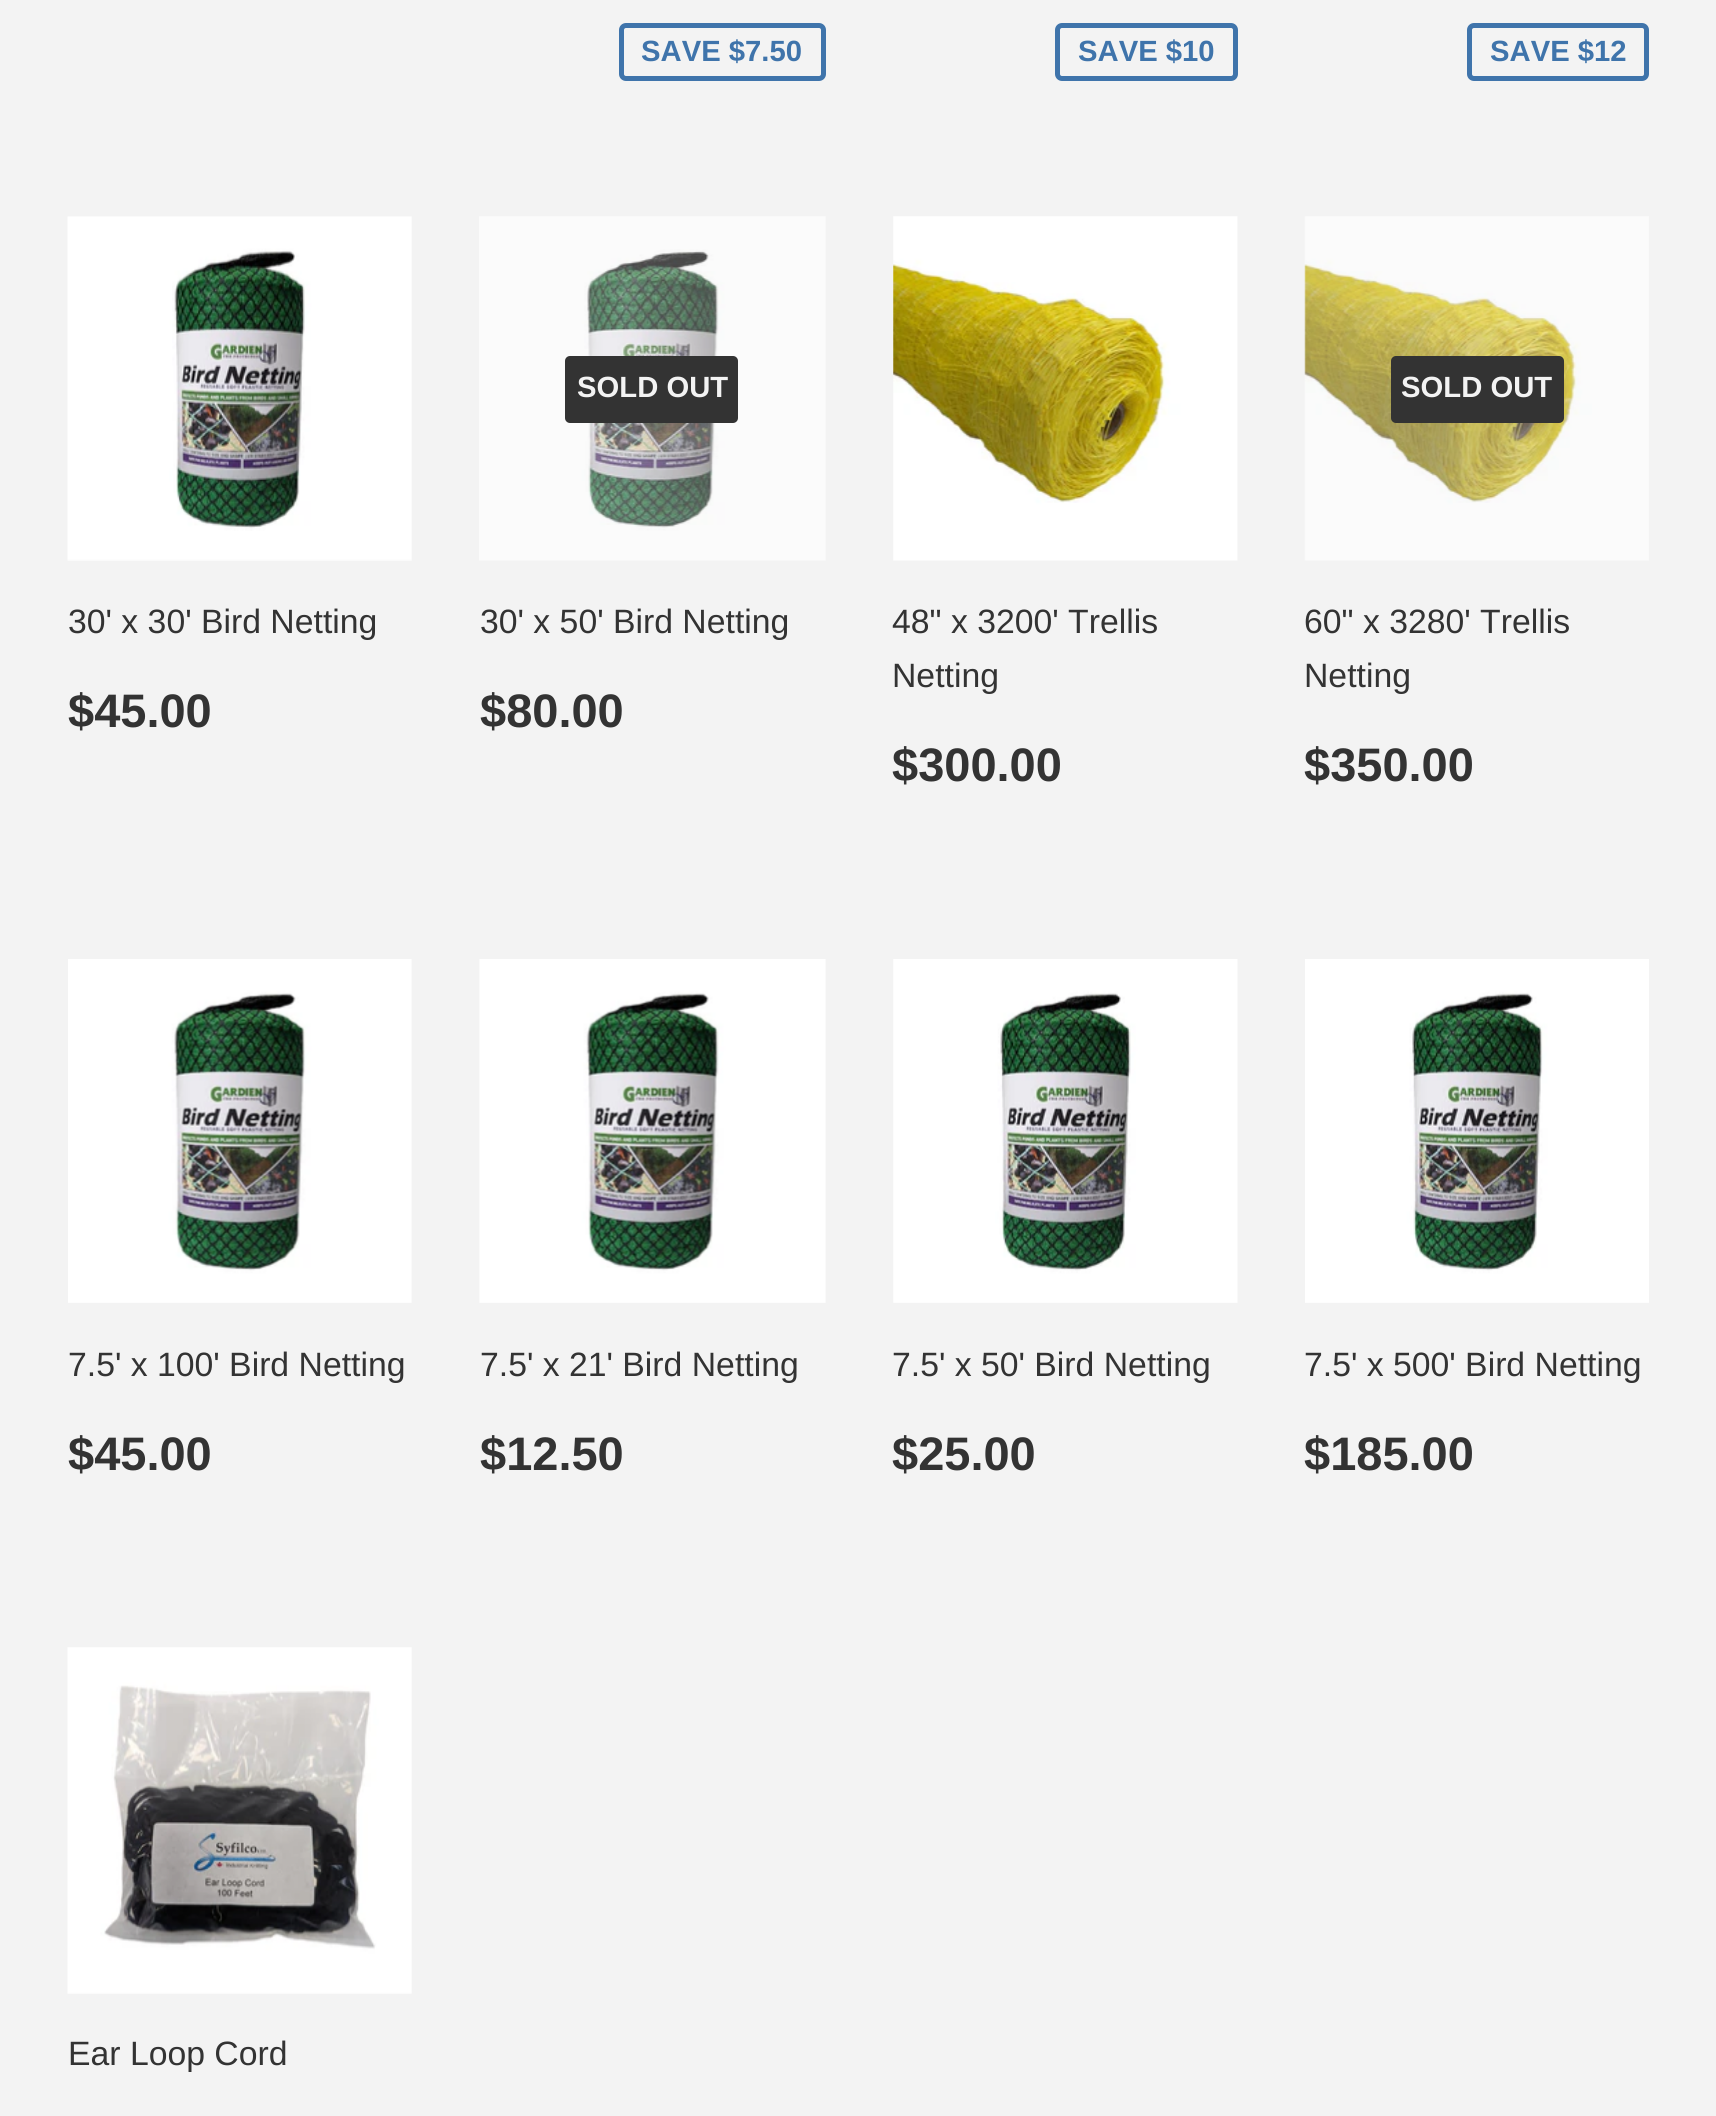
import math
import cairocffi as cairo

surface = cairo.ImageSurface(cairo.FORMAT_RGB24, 1716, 2116)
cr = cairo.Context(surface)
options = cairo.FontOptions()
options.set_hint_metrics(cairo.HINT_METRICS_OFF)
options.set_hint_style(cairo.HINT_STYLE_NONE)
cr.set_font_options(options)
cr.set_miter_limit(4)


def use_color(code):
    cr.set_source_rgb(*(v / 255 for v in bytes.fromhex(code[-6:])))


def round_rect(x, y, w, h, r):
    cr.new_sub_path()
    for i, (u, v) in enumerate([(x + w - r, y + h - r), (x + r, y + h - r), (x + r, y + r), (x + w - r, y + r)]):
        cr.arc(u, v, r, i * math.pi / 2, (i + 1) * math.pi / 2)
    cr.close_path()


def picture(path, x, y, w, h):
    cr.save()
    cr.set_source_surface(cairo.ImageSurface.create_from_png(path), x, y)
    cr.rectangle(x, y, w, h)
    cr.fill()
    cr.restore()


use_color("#f3f3f3")
cr.paint()
round_rect(621.5, 25.5, 202, 53, 4.5)
use_color("#3f74ab")
cr.set_line_width(5)
cr.stroke()
cr.select_font_face("Liberation Sans", cairo.FONT_SLANT_NORMAL, cairo.FONT_WEIGHT_BOLD)
cr.set_font_size(29.25)
cr.move_to(641, 61)
cr.show_text("SAVE $7.50")
round_rect(1057.5, 25.5, 178, 53, 4.5)
cr.stroke()
cr.move_to(1078, 61)
cr.show_text("SAVE $10")
round_rect(1469.5, 25.5, 177, 53, 4.5)
cr.stroke()
cr.move_to(1490, 61)
cr.show_text("SAVE $12")
picture("img1.png", 67, 216, 345, 345)
cr.select_font_face("Liberation Sans")
cr.set_font_size(33.75)
use_color("#333333")
cr.move_to(68, 633)
cr.show_text("30' x 30' Bird Netting")
cr.select_font_face("Liberation Sans", cairo.FONT_SLANT_NORMAL, cairo.FONT_WEIGHT_BOLD)
cr.set_font_size(47)
cr.move_to(68, 727)
cr.show_text("$45.00")
picture("img2.png", 479, 216, 347, 345)
round_rect(565, 356, 173, 67, 5)
cr.fill()
cr.set_font_size(29.25)
use_color("#f3f3f3")
cr.move_to(577, 397)
cr.show_text("SOLD OUT")
cr.select_font_face("Liberation Sans")
cr.set_font_size(33.75)
use_color("#333333")
cr.move_to(480, 633)
cr.show_text("30' x 50' Bird Netting")
cr.select_font_face("Liberation Sans", cairo.FONT_SLANT_NORMAL, cairo.FONT_WEIGHT_BOLD)
cr.set_font_size(47)
cr.move_to(480, 727)
cr.show_text("$80.00")
picture("img3.png", 893, 216, 345, 345)
cr.select_font_face("Liberation Sans")
cr.set_font_size(33.75)
cr.move_to(892, 633)
cr.show_text("48\" x 3200' Trellis")
cr.move_to(892, 687)
cr.show_text("Netting")
cr.select_font_face("Liberation Sans", cairo.FONT_SLANT_NORMAL, cairo.FONT_WEIGHT_BOLD)
cr.set_font_size(47)
cr.move_to(892, 781)
cr.show_text("$300.00")
picture("img4.png", 1304, 216, 345, 345)
round_rect(1391, 356, 173, 67, 5)
cr.fill()
cr.set_font_size(29.25)
use_color("#f3f3f3")
cr.move_to(1401, 397)
cr.show_text("SOLD OUT")
cr.select_font_face("Liberation Sans")
cr.set_font_size(33.75)
use_color("#333333")
cr.move_to(1304, 633)
cr.show_text("60\" x 3280' Trellis")
cr.move_to(1304, 687)
cr.show_text("Netting")
cr.select_font_face("Liberation Sans", cairo.FONT_SLANT_NORMAL, cairo.FONT_WEIGHT_BOLD)
cr.set_font_size(47)
cr.move_to(1304, 781)
cr.show_text("$350.00")
picture("img5.png", 68, 959, 344, 344)
cr.select_font_face("Liberation Sans")
cr.set_font_size(33.75)
cr.move_to(68, 1376)
cr.show_text("7.5' x 100' Bird Netting")
cr.select_font_face("Liberation Sans", cairo.FONT_SLANT_NORMAL, cairo.FONT_WEIGHT_BOLD)
cr.set_font_size(47)
cr.move_to(68, 1470)
cr.show_text("$45.00")
picture("img6.png", 479, 959, 347, 344)
cr.select_font_face("Liberation Sans")
cr.set_font_size(33.75)
cr.move_to(480, 1376)
cr.show_text("7.5' x 21' Bird Netting")
cr.select_font_face("Liberation Sans", cairo.FONT_SLANT_NORMAL, cairo.FONT_WEIGHT_BOLD)
cr.set_font_size(47)
cr.move_to(480, 1470)
cr.show_text("$12.50")
picture("img7.png", 893, 959, 345, 344)
cr.select_font_face("Liberation Sans")
cr.set_font_size(33.75)
cr.move_to(892, 1376)
cr.show_text("7.5' x 50' Bird Netting")
cr.select_font_face("Liberation Sans", cairo.FONT_SLANT_NORMAL, cairo.FONT_WEIGHT_BOLD)
cr.set_font_size(47)
cr.move_to(892, 1470)
cr.show_text("$25.00")
picture("img8.png", 1305, 959, 344, 344)
cr.select_font_face("Liberation Sans")
cr.set_font_size(33.75)
cr.move_to(1304, 1376)
cr.show_text("7.5' x 500' Bird Netting")
cr.select_font_face("Liberation Sans", cairo.FONT_SLANT_NORMAL, cairo.FONT_WEIGHT_BOLD)
cr.set_font_size(47)
cr.move_to(1304, 1470)
cr.show_text("$185.00")
picture("img9.png", 67, 1647, 345, 347)
cr.select_font_face("Liberation Sans")
cr.set_font_size(33.75)
cr.move_to(68, 2065)
cr.show_text("Ear Loop Cord")
surface.write_to_png("result.png")
